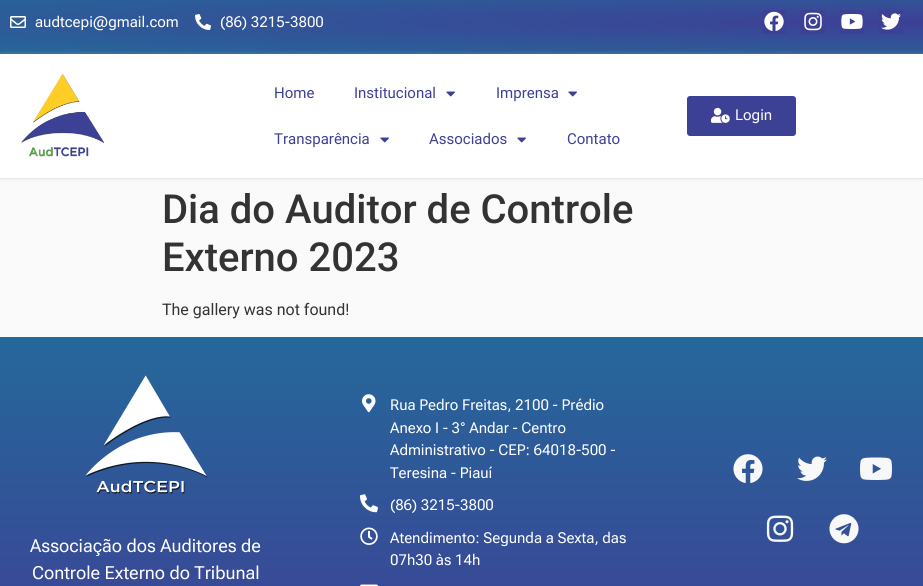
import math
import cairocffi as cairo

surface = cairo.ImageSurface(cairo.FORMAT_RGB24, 923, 586)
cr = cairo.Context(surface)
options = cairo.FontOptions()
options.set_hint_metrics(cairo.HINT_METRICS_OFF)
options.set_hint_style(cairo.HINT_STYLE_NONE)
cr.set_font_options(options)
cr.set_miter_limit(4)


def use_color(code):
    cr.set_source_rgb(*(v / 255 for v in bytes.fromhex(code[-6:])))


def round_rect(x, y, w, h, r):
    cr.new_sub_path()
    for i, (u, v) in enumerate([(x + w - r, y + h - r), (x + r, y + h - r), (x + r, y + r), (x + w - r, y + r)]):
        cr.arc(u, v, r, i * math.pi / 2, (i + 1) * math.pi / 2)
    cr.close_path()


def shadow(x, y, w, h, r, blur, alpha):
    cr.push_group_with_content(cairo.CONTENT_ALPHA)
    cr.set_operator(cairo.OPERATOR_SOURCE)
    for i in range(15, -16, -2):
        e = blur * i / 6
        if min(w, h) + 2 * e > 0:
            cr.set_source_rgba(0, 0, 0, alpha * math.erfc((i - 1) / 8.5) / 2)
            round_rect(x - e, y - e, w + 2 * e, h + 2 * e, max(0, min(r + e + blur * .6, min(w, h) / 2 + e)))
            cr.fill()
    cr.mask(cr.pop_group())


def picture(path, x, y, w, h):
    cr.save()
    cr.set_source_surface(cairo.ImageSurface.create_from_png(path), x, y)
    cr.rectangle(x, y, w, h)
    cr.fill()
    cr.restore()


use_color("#fafafa")
cr.paint()
gradient = cairo.RadialGradient(0, 0, 0, 0, 0, 1)
gradient.set_matrix(cairo.Matrix(1 / 1305, 0, 0, 1 / 45, -1 * 923 / 1305, -1 * 22 / 45))
gradient.add_color_stop_rgba(0.05, 0.239, 0.255, 0.588, 1)
gradient.add_color_stop_rgba(1, 0.145, 0.408, 0.604, 1)
cr.set_source(gradient)
cr.rectangle(0, 0, 923, 54)
cr.fill()
picture("img1.png", 10, 16, 16, 12)
cr.select_font_face("Roboto Flex")
cr.set_font_size(15)
use_color("#ffffff")
cr.move_to(35, 27)
cr.show_text("audtcepi@gmail.com")
picture("img2.png", 195, 14, 16, 16)
cr.move_to(220, 27)
cr.show_text("(86) 3215-3800")
use_color("#3d4196")
cr.rectangle(762, 10, 24, 24)
cr.fill()
picture("img3.png", 764, 11, 20, 20)
cr.rectangle(801, 10, 24, 24)
cr.fill()
picture("img4.png", 804, 12, 18, 19)
cr.rectangle(840, 10, 24, 24)
cr.fill()
picture("img5.png", 841, 14, 22, 15)
cr.rectangle(879, 10, 24, 24)
cr.fill()
picture("img6.png", 881, 13, 20, 17)
use_color("#a0a0a0")
shadow(1, 54, 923, 124, 0, 2, 0.5)
use_color("#ffffff")
cr.rectangle(0, 54, 923, 124)
cr.fill()
picture("img7.png", 21, 74, 84, 83)
cr.select_font_face("Roboto")
use_color("#3d4196")
cr.move_to(274, 98)
cr.show_text("Home")
cr.move_to(354, 98)
cr.show_text("Institucional")
picture("img8.png", 446, 91, 9, 6)
cr.move_to(496, 98)
cr.show_text("Imprensa")
picture("img8.png", 568, 91, 9, 6)
cr.move_to(274, 144)
cr.show_text("Transparência")
picture("img8.png", 380, 137, 9, 6)
cr.move_to(429, 144)
cr.show_text("Associados")
picture("img8.png", 517, 137, 9, 6)
cr.move_to(567, 144)
cr.show_text("Contato")
round_rect(687, 96, 109, 40, 3)
cr.fill()
picture("img9.png", 711, 107, 19, 16)
cr.select_font_face("Roboto Flex")
use_color("#fffef9")
cr.move_to(735, 120)
cr.show_text("Login")
cr.select_font_face("Roboto Medium")
cr.set_font_size(40)
use_color("#333333")
cr.move_to(162, 223)
cr.show_text("Dia do Auditor de Controle")
cr.move_to(162, 271)
cr.show_text("Externo 2023")
cr.select_font_face("Roboto")
cr.set_font_size(16)
cr.move_to(162, 315)
cr.show_text("The gallery was not found!")
gradient = cairo.LinearGradient(462, 337, 462, 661)
gradient.add_color_stop_rgba(0, 0.145, 0.408, 0.604, 1)
gradient.add_color_stop_rgba(1, 0.239, 0.255, 0.588, 1)
cr.set_source(gradient)
cr.rectangle(0, 337, 923, 249)
cr.fill()
picture("img10.png", 362, 394, 14, 19)
cr.select_font_face("Roboto Flex")
cr.set_font_size(15)
use_color("#ffffff")
cr.move_to(390, 410)
cr.show_text("Rua Pedro Freitas, 2100 - Prédio")
cr.move_to(390, 433)
cr.show_text("Anexo I - 3° Andar - Centro")
cr.move_to(390, 455)
cr.show_text("Administrativo - CEP: 64018-500 -")
cr.move_to(390, 478)
cr.show_text("Teresina - Piauí")
picture("img11.png", 360, 494, 18, 19)
cr.move_to(390, 510)
cr.show_text("(86) 3215-3800")
picture("img12.png", 360, 527, 18, 18)
cr.move_to(390, 543)
cr.show_text("Atendimento: Segunda a Sexta, das")
cr.move_to(390, 565)
cr.show_text("07h30 às 14h")
picture("img13.png", 360, 584, 18, 2)
picture("img14.png", 733, 454, 30, 30)
picture("img15.png", 797, 456, 30, 25)
picture("img16.png", 860, 457, 32, 23)
picture("img17.png", 766, 515, 28, 27)
picture("img18.png", 829, 514, 30, 30)
picture("img19.png", 85, 375, 123, 119)
cr.set_font_size(18)
cr.move_to(30, 552)
cr.show_text("Associação dos Auditores de")
cr.move_to(32, 579)
cr.show_text("Controle Externo do Tribunal")
surface.write_to_png("result.png")
